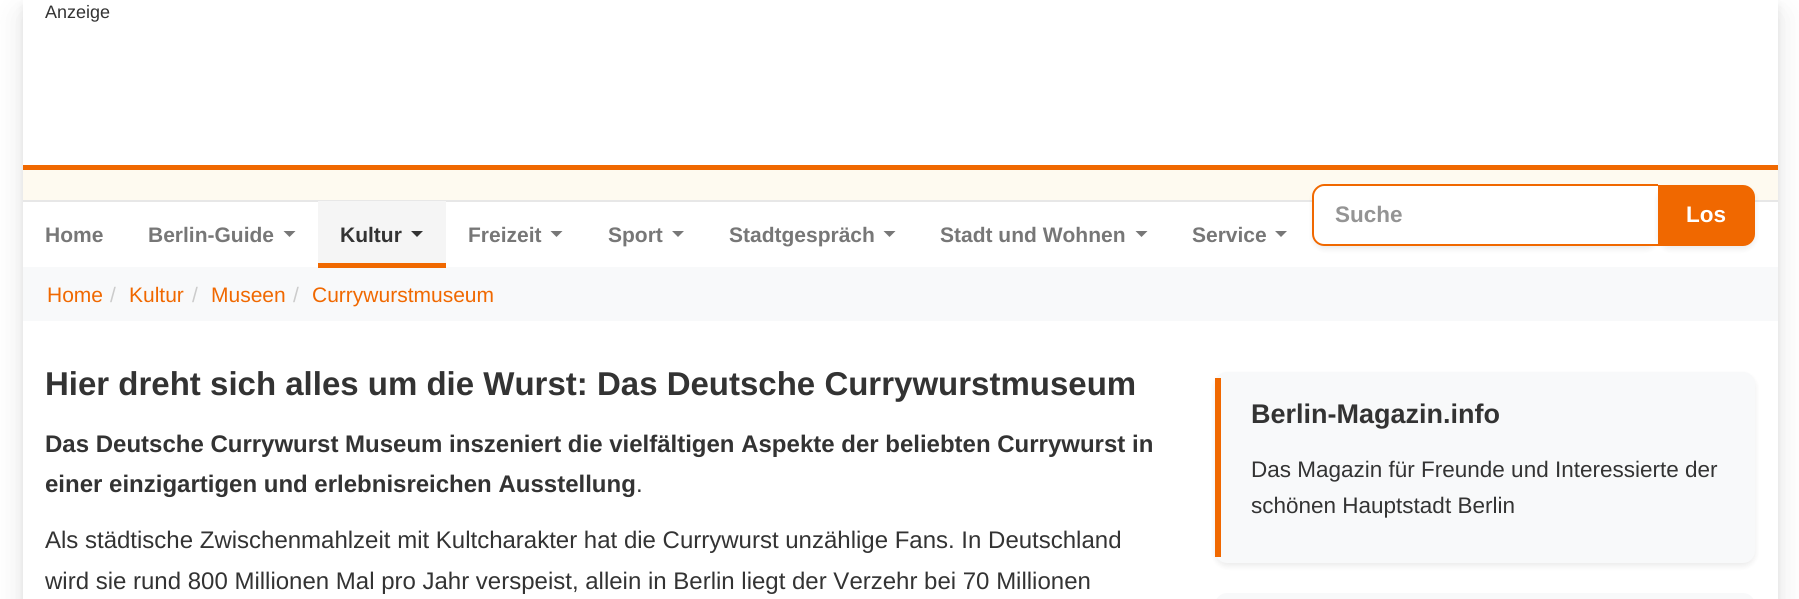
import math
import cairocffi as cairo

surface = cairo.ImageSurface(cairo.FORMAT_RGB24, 1799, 599)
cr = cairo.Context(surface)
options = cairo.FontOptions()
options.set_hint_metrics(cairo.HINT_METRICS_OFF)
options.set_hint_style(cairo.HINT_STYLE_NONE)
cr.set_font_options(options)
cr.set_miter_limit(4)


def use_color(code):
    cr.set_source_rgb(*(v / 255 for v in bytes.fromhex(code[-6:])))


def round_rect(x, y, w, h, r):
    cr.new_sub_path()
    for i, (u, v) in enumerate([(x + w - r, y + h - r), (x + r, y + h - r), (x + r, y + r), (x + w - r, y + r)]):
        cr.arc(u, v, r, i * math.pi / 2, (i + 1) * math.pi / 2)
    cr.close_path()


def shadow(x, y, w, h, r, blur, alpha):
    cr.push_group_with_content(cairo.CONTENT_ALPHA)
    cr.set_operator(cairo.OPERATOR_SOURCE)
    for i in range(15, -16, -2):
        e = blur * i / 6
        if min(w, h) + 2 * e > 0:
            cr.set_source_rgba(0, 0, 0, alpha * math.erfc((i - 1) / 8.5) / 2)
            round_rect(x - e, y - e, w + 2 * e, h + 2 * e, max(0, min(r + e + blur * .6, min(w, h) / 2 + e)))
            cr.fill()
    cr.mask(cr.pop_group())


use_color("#ffffff")
cr.paint()
use_color("#000000")
shadow(23, 15, 1755, 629, 0, 15, 0.1)
shadow(23, 6, 1755, 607, 0, 4.5, 0.07)
use_color("#ffffff")
cr.rectangle(23, 0, 1755, 599)
cr.fill()
cr.select_font_face("Liberation Sans")
cr.set_font_size(18)
use_color("#333333")
cr.move_to(45, 18)
cr.show_text("Anzeige")
use_color("#fefaf0")
cr.rectangle(23, 170, 1755, 30)
cr.fill()
use_color("#f06800")
cr.rectangle(23, 165, 1755, 5)
cr.fill()
use_color("#e7e7e7")
cr.rectangle(23, 200, 1755, 2)
cr.fill()
use_color("#000000")
shadow(1313, 188, 345, 61, 12, 3, 0.08)
use_color("#ffffff")
cr.new_path()
cr.move_to(1325, 185)
cr.line_to(1658, 185)
cr.line_to(1658, 246)
cr.line_to(1325, 246)
cr.curve_to(1318.5, 246, 1313, 240.5, 1313, 234)
cr.line_to(1313, 197)
cr.curve_to(1313, 190.5, 1318.5, 185, 1325, 185)
cr.close_path()
cr.fill()
use_color("#f06800")
cr.set_fill_rule(cairo.FILL_RULE_EVEN_ODD)
cr.new_path()
cr.move_to(1324, 184)
cr.line_to(1658, 184)
cr.line_to(1658, 246)
cr.line_to(1324, 246)
cr.curve_to(1318, 246, 1312, 241, 1312, 234)
cr.line_to(1312, 196)
cr.curve_to(1312, 190, 1318, 184, 1324, 184)
cr.close_path()
cr.move_to(1324, 186)
cr.line_to(1658, 186)
cr.line_to(1658, 244)
cr.line_to(1324, 244)
cr.curve_to(1319, 244, 1314, 240, 1314, 234)
cr.line_to(1314, 196)
cr.curve_to(1314, 191, 1319, 186, 1324, 186)
cr.close_path()
cr.fill()
cr.select_font_face("Liberation Sans", cairo.FONT_SLANT_NORMAL, cairo.FONT_WEIGHT_BOLD)
cr.set_font_size(22.5)
use_color("#949494")
cr.move_to(1335, 222)
cr.show_text("Suche")
use_color("#000000")
shadow(1658, 188, 97, 61, 12, 3, 0.08)
use_color("#f06800")
cr.new_path()
cr.move_to(1659, 186)
cr.line_to(1743, 186)
cr.curve_to(1749, 186, 1754, 191, 1754, 197)
cr.line_to(1754, 234)
cr.curve_to(1754, 240, 1749, 245, 1743, 245)
cr.line_to(1659, 245)
cr.close_path()
cr.fill_preserve()
cr.stroke()
use_color("#ffffff")
cr.move_to(1686, 222)
cr.show_text("Los")
cr.set_font_size(21)
use_color("#777777")
cr.move_to(45, 242)
cr.show_text("Home")
cr.move_to(148, 242)
cr.show_text("Berlin-Guide")
cr.set_fill_rule(cairo.FILL_RULE_WINDING)
cr.new_path()
cr.move_to(283.5, 231)
cr.line_to(295.5, 231)
cr.line_to(289.5, 237)
cr.close_path()
cr.fill()
use_color("#f5f5f5")
cr.rectangle(318, 201, 128, 62)
cr.fill()
use_color("#333333")
cr.move_to(340, 242)
cr.show_text("Kultur")
cr.new_path()
cr.move_to(411, 231)
cr.line_to(423, 231)
cr.line_to(417, 237)
cr.close_path()
cr.fill()
use_color("#f8f9fa")
cr.rectangle(23, 267, 1755, 54)
cr.fill()
use_color("#f06800")
cr.rectangle(318, 263, 128, 5)
cr.fill()
use_color("#777777")
cr.move_to(468, 242)
cr.show_text("Freizeit")
cr.new_path()
cr.move_to(550.5, 231)
cr.line_to(562.5, 231)
cr.line_to(556.5, 237)
cr.close_path()
cr.fill()
cr.move_to(608, 242)
cr.show_text("Sport")
cr.new_path()
cr.move_to(672, 231)
cr.line_to(684, 231)
cr.line_to(678, 237)
cr.close_path()
cr.fill()
cr.move_to(729, 242)
cr.show_text("Stadtgespräch")
cr.new_path()
cr.move_to(883.5, 231)
cr.line_to(895.5, 231)
cr.line_to(889.5, 237)
cr.close_path()
cr.fill()
cr.move_to(940, 242)
cr.show_text("Stadt und Wohnen")
cr.new_path()
cr.move_to(1135.5, 231)
cr.line_to(1147.5, 231)
cr.line_to(1141.5, 237)
cr.close_path()
cr.fill()
cr.move_to(1192, 242)
cr.show_text("Service")
cr.new_path()
cr.move_to(1275, 231)
cr.line_to(1287, 231)
cr.line_to(1281, 237)
cr.close_path()
cr.fill()
cr.select_font_face("Liberation Sans")
use_color("#f06800")
cr.move_to(47, 302)
cr.show_text("Home")
use_color("#cccccc")
cr.move_to(110, 302)
cr.show_text("/")
use_color("#f06800")
cr.move_to(129, 302)
cr.show_text("Kultur")
use_color("#cccccc")
cr.move_to(192, 302)
cr.show_text("/")
use_color("#f06800")
cr.move_to(211, 302)
cr.show_text("Museen")
use_color("#cccccc")
cr.move_to(293, 302)
cr.show_text("/")
use_color("#f06800")
cr.move_to(312, 302)
cr.show_text("Currywurstmuseum")
cr.select_font_face("Liberation Sans", cairo.FONT_SLANT_NORMAL, cairo.FONT_WEIGHT_BOLD)
cr.set_font_size(33)
use_color("#333333")
cr.move_to(45, 395)
cr.show_text("Hier dreht sich alles um die Wurst: Das Deutsche Currywurstmuseum")
cr.set_font_size(24)
cr.move_to(45, 452)
cr.show_text("Das Deutsche Currywurst Museum inszeniert die vielfältigen Aspekte der beliebten Currywurst in")
cr.move_to(45, 492)
cr.show_text("einer einzigartigen und erlebnisreichen Ausstellung")
cr.select_font_face("Liberation Sans")
cr.move_to(636, 492)
cr.show_text(".")
cr.move_to(45, 548)
cr.show_text("Als städtische Zwischenmahlzeit mit Kultcharakter hat die Currywurst unzählige Fans. In Deutschland")
cr.move_to(45, 589)
cr.show_text("wird sie rund 800 Millionen Mal pro Jahr verspeist, allein in Berlin liegt der Verzehr bei 70 Millionen")
use_color("#000000")
shadow(1215, 375, 540, 191, 12, 3, 0.08)
use_color("#f8f9fa")
round_rect(1215, 372, 540, 191, 12)
cr.fill()
use_color("#f06800")
cr.rectangle(1215, 378, 6, 179)
cr.fill()
cr.select_font_face("Liberation Sans", cairo.FONT_SLANT_NORMAL, cairo.FONT_WEIGHT_BOLD)
cr.set_font_size(27)
use_color("#333333")
cr.move_to(1251, 423)
cr.show_text("Berlin-Magazin.info")
cr.select_font_face("Liberation Sans")
cr.set_font_size(22.5)
cr.move_to(1251, 477)
cr.show_text("Das Magazin für Freunde und Interessierte der")
cr.move_to(1251, 513)
cr.show_text("schönen Hauptstadt Berlin")
use_color("#f8f9fa")
round_rect(1215, 593, 540, 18, 12)
cr.fill()
surface.write_to_png("result.png")
